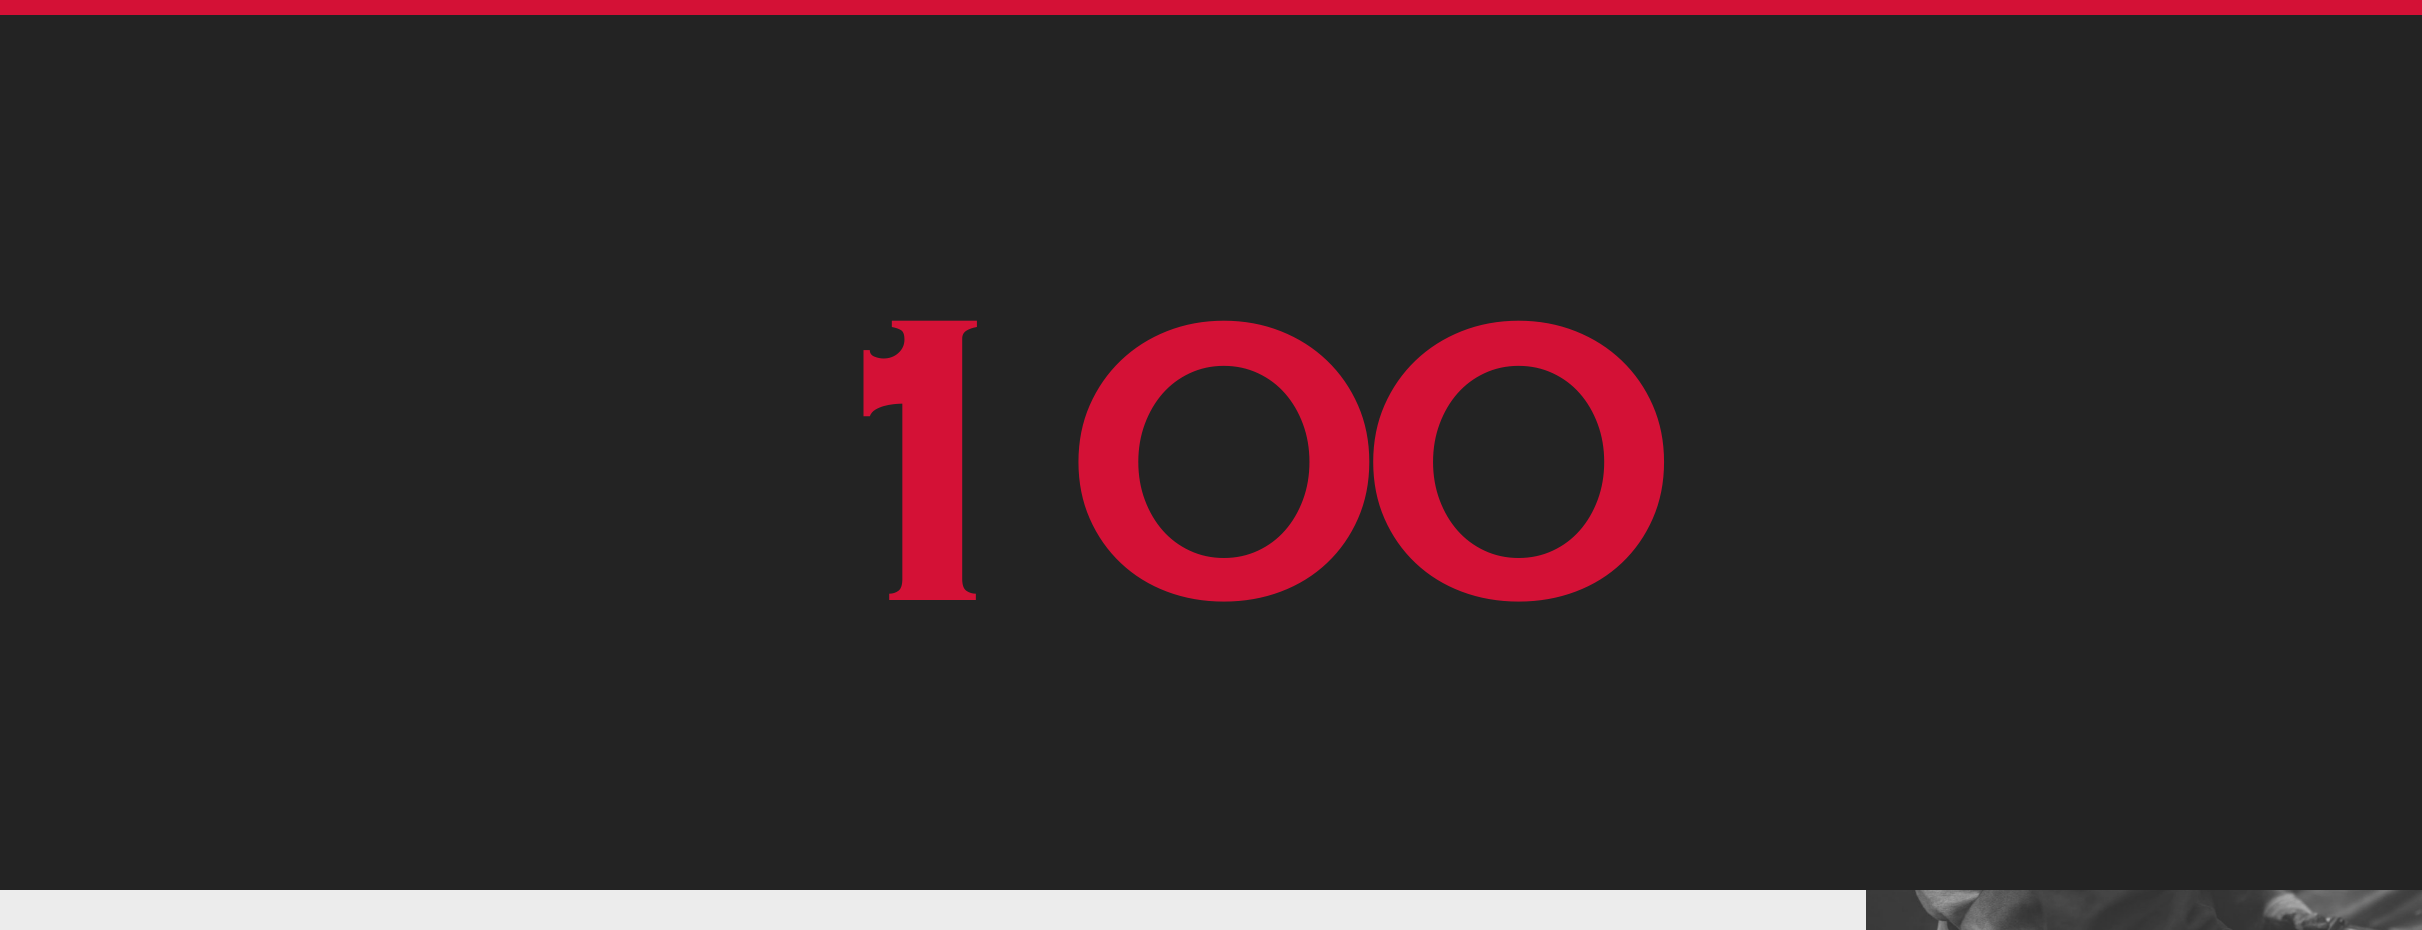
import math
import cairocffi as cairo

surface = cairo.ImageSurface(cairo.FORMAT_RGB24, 2422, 930)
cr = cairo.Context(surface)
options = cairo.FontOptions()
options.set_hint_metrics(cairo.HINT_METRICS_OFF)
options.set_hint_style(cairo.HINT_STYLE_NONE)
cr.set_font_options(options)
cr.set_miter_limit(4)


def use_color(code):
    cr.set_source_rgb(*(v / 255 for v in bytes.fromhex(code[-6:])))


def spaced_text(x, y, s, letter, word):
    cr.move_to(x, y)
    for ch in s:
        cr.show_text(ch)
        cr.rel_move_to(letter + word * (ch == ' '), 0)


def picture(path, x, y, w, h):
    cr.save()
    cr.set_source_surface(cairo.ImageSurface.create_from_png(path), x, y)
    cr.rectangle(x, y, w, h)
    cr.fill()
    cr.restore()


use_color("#ececec")
cr.paint()
use_color("#232323")
cr.rectangle(0, 15, 2422, 875)
cr.fill()
use_color("#d41136")
cr.rectangle(0, 0, 2422, 15)
cr.fill()
cr.select_font_face("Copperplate")
cr.set_font_size(525)
spaced_text(769, 600, "100", -26, 0)
picture("img1.png", 1866, 890, 556, 40)
surface.write_to_png("result.png")
